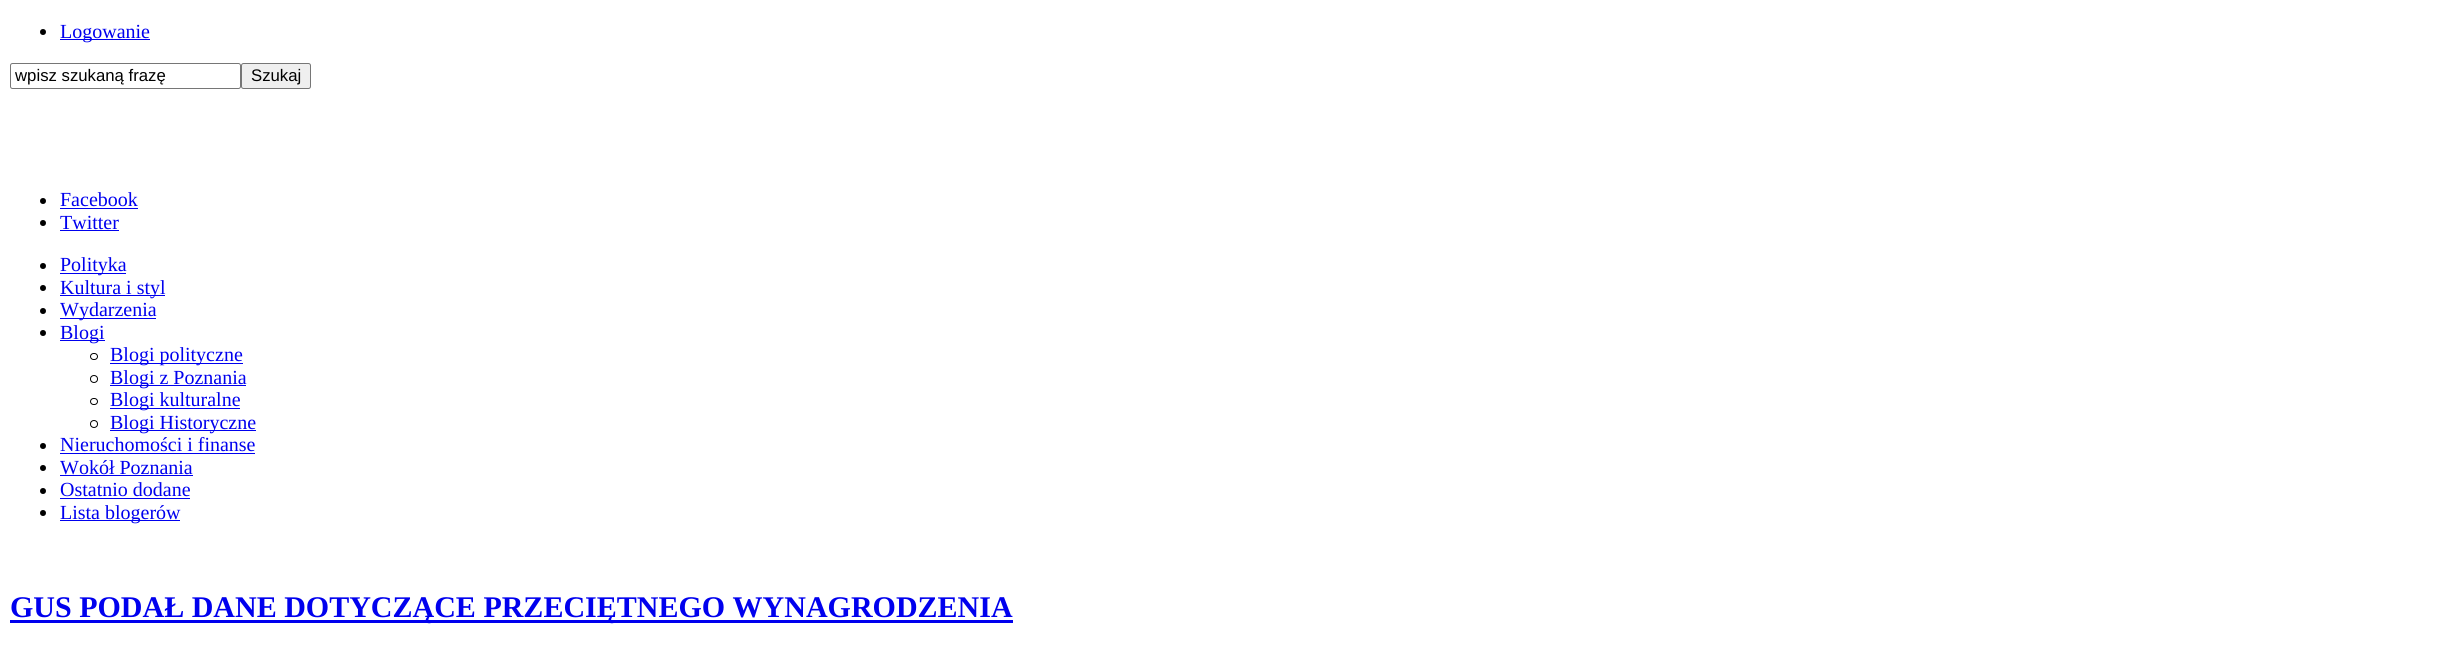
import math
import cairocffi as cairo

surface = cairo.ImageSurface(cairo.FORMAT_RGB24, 2461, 647)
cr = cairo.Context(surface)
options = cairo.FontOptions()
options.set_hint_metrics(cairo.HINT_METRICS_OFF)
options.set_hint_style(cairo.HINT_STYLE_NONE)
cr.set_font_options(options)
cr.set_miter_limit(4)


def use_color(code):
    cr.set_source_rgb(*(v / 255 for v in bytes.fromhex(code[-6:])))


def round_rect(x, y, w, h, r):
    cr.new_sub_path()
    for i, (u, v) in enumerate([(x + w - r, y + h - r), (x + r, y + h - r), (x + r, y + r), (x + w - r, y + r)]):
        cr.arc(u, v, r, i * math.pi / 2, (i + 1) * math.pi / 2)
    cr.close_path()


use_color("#ffffff")
cr.paint()
use_color("#000000")
cr.arc(43, 32, 3, 0, 2 * math.pi)
cr.fill()
use_color("#0000ee")
cr.rectangle(60, 39, 90, 1)
cr.fill()
cr.select_font_face("Liberation Serif")
cr.set_font_size(20)
cr.move_to(60, 38)
cr.show_text("Logowanie")
round_rect(10.5, 63.5, 230, 25, 2)
use_color("#767676")
cr.set_line_width(1)
cr.stroke()
cr.select_font_face("Liberation Sans")
cr.set_font_size(16.75)
use_color("#000000")
cr.move_to(15, 81)
cr.show_text("wpisz szukaną frazę")
use_color("#efefef")
round_rect(241.5, 63.5, 69, 25, 2)
cr.fill_preserve()
use_color("#767676")
cr.stroke()
use_color("#000000")
cr.move_to(251, 81)
cr.show_text("Szukaj")
cr.new_path()
cr.arc(43, 201, 3, 0, 2 * math.pi)
cr.fill()
cr.select_font_face("Liberation Serif")
cr.set_font_size(20)
use_color("#0000ee")
cr.move_to(60, 206)
cr.show_text("Facebook")
cr.rectangle(60, 208, 78, 1)
cr.fill()
use_color("#000000")
cr.arc(43, 223, 3, 0, 2 * math.pi)
cr.fill()
use_color("#0000ee")
cr.move_to(60, 229)
cr.show_text("Twitter")
cr.rectangle(60, 230, 59, 1)
cr.fill()
use_color("#000000")
cr.arc(43, 266, 3, 0, 2 * math.pi)
cr.fill()
use_color("#0000ee")
cr.rectangle(60, 273, 66, 1)
cr.fill()
cr.move_to(60, 271)
cr.show_text("Polityka")
use_color("#000000")
cr.new_path()
cr.arc(43, 288, 3, 0, 2 * math.pi)
cr.fill()
use_color("#0000ee")
cr.rectangle(60, 295, 105, 1)
cr.fill()
cr.move_to(60, 294)
cr.show_text("Kultura i styl")
use_color("#000000")
cr.new_path()
cr.arc(43, 311, 3, 0, 2 * math.pi)
cr.fill()
use_color("#0000ee")
cr.rectangle(60, 318, 96, 1)
cr.fill()
cr.move_to(60, 316)
cr.show_text("Wydarzenia")
use_color("#000000")
cr.new_path()
cr.arc(43, 333, 3, 0, 2 * math.pi)
cr.fill()
use_color("#0000ee")
cr.rectangle(60, 340, 45, 1)
cr.fill()
cr.move_to(60, 339)
cr.show_text("Blogi")
round_rect(90.5, 353.5, 7, 6, 3)
use_color("#000000")
cr.stroke()
use_color("#0000ee")
cr.rectangle(110, 363, 133, 1)
cr.fill()
cr.move_to(110, 361)
cr.show_text("Blogi polityczne")
cr.new_path()
cr.arc(94, 379, 3.5, 0, 2 * math.pi)
use_color("#000000")
cr.stroke()
use_color("#0000ee")
cr.rectangle(110, 385, 136, 1)
cr.fill()
cr.move_to(110, 384)
cr.show_text("Blogi z Poznania")
round_rect(90.5, 398.5, 7, 6, 3)
use_color("#000000")
cr.stroke()
use_color("#0000ee")
cr.rectangle(110, 408, 130, 1)
cr.fill()
cr.move_to(110, 406)
cr.show_text("Blogi kulturalne")
cr.new_path()
cr.arc(94, 424, 3.5, 0, 2 * math.pi)
use_color("#000000")
cr.stroke()
use_color("#0000ee")
cr.rectangle(110, 430, 146, 1)
cr.fill()
cr.move_to(110, 429)
cr.show_text("Blogi Historyczne")
use_color("#000000")
cr.new_path()
cr.arc(43, 446, 3, 0, 2 * math.pi)
cr.fill()
use_color("#0000ee")
cr.move_to(60, 451)
cr.show_text("Nieruchomości i finanse")
cr.rectangle(60, 453, 195, 1)
cr.fill()
use_color("#000000")
cr.arc(43, 468, 3, 0, 2 * math.pi)
cr.fill()
use_color("#0000ee")
cr.move_to(60, 474)
cr.show_text("Wokół Poznania")
cr.rectangle(60, 475, 133, 1)
cr.fill()
use_color("#000000")
cr.arc(43, 491, 3, 0, 2 * math.pi)
cr.fill()
use_color("#0000ee")
cr.move_to(60, 496)
cr.show_text("Ostatnio dodane")
cr.rectangle(60, 498, 130, 1)
cr.fill()
use_color("#000000")
cr.arc(43, 513, 3, 0, 2 * math.pi)
cr.fill()
use_color("#0000ee")
cr.rectangle(60, 520, 120, 1)
cr.fill()
cr.move_to(60, 519)
cr.show_text("Lista blogerów")
cr.rectangle(10, 620, 1003, 3)
cr.fill()
cr.select_font_face("Liberation Serif", cairo.FONT_SLANT_NORMAL, cairo.FONT_WEIGHT_BOLD)
cr.set_font_size(30)
cr.move_to(10, 617)
cr.show_text("GUS PODAŁ DANE DOTYCZĄCE PRZECIĘTNEGO WYNAGRODZENIA")
surface.write_to_png("result.png")
